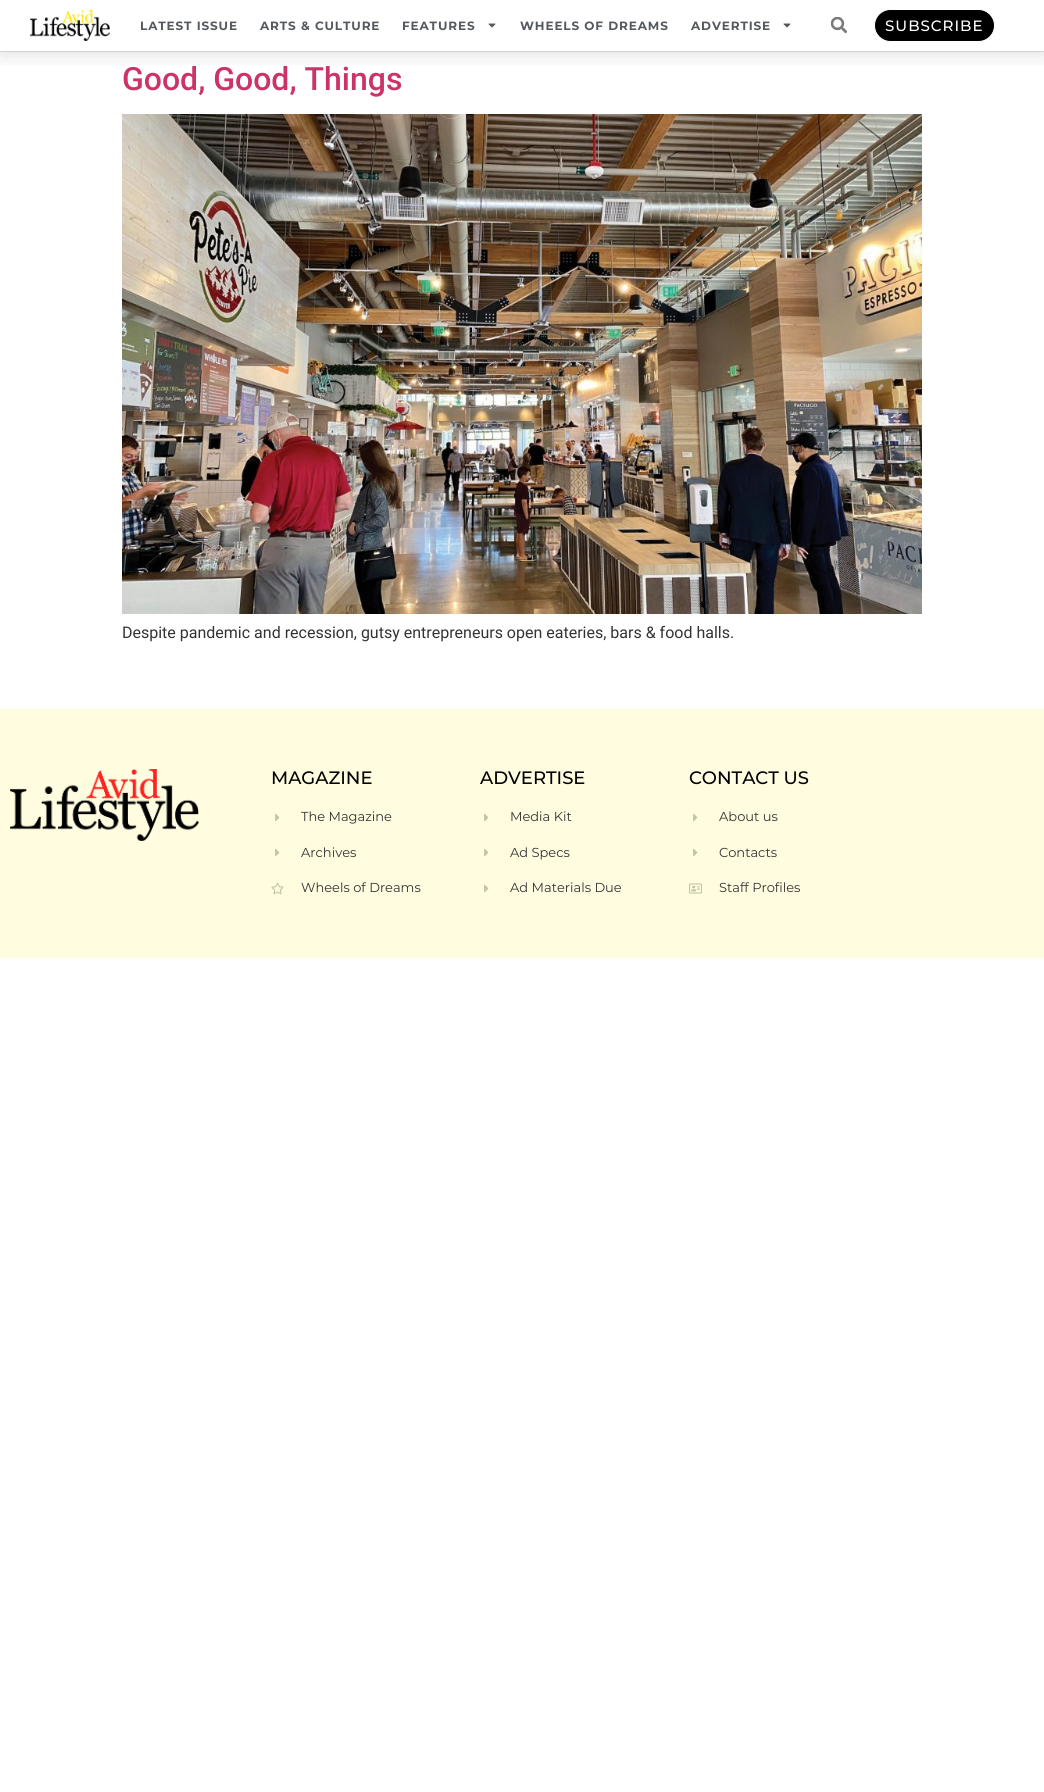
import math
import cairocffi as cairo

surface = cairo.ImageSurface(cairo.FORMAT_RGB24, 1044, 1792)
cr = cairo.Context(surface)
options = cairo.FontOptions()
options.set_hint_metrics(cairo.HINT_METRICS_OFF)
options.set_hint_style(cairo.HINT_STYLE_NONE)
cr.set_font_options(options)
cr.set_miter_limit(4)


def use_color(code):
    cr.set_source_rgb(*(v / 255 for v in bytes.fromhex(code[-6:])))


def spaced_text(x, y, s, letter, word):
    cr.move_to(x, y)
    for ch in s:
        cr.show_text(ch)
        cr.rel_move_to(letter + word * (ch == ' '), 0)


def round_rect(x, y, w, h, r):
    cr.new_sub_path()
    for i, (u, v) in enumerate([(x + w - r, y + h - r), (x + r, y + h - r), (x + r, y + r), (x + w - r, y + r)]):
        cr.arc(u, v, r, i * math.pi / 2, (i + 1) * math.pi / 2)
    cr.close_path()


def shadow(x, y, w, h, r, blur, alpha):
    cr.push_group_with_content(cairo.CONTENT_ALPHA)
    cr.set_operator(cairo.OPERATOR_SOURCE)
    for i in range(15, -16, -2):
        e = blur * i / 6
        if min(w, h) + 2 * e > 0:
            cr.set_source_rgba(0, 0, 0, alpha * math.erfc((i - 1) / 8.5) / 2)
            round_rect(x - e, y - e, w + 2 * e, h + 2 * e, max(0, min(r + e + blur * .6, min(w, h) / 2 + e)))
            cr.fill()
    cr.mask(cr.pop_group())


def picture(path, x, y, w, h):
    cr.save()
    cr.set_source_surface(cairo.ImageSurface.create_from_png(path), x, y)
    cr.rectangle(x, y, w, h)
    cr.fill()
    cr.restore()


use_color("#ffffff")
cr.paint()
cr.save()
cr.rectangle(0, 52, 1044, 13)
cr.clip()
use_color("#000000")
shadow(0, 0, 1044, 52, 0, 12, 0.15)
cr.restore()
use_color("#d3d3d3")
cr.rectangle(0, 51, 1044, 1)
cr.fill()
picture("img1.png", 30, 10, 80, 31)
cr.select_font_face("Montserrat", cairo.FONT_SLANT_NORMAL, cairo.FONT_WEIGHT_BOLD)
cr.set_font_size(12)
use_color("#54595f")
spaced_text(140, 30, "LATEST ISSUE", 0.9, 0)
spaced_text(260, 30, "ARTS & CULTURE", 0.9, 0)
spaced_text(402, 30, "FEATURES", 0.9, 0)
picture("img2.png", 488, 23, 8, 5)
spaced_text(520, 30, "WHEELS OF DREAMS", 0.9, 0)
spaced_text(691, 30, "ADVERTISE", 0.9, 0)
picture("img2.png", 783, 23, 8, 5)
picture("img3.png", 831, 17, 16, 17)
use_color("#000000")
round_rect(874.5, 9.5, 120, 32, 16)
cr.fill_preserve()
use_color("#ffffff")
cr.set_line_width(1)
cr.stroke()
cr.select_font_face("Montserrat Medium")
cr.set_font_size(15)
spaced_text(885, 31, "SUBSCRIBE", 1, 0)
cr.select_font_face("Roboto Medium")
cr.set_font_size(32)
use_color("#cc3366")
cr.move_to(122, 90)
cr.show_text("Good, Good, Things")
picture("img4.png", 122, 114, 800, 500)
cr.select_font_face("Roboto")
cr.set_font_size(16)
use_color("#333333")
cr.move_to(122, 638)
cr.show_text("Despite pandemic and recession, gutsy entrepreneurs open eateries, bars & food halls.")
use_color("#fffcdf")
cr.rectangle(0, 709, 1044, 249)
cr.fill()
picture("img5.png", 10, 769, 189, 72)
cr.select_font_face("Montserrat Medium")
cr.set_font_size(18)
use_color("#000000")
cr.move_to(271, 784)
cr.show_text("MAGAZINE")
picture("img6.png", 275, 813, 5, 9)
cr.select_font_face("Montserrat")
cr.set_font_size(13)
use_color("#333333")
cr.move_to(301, 821)
cr.show_text("The Magazine")
picture("img6.png", 275, 848, 5, 9)
cr.move_to(301, 857)
cr.show_text("Archives")
picture("img7.png", 271, 882, 13, 13)
cr.move_to(301, 892)
cr.show_text("Wheels of Dreams")
cr.select_font_face("Montserrat Medium")
cr.set_font_size(18)
use_color("#000000")
cr.move_to(480, 784)
cr.show_text("ADVERTISE")
picture("img6.png", 484, 813, 5, 9)
cr.select_font_face("Montserrat")
cr.set_font_size(13)
use_color("#333333")
cr.move_to(510, 821)
cr.show_text("Media Kit")
picture("img6.png", 484, 848, 5, 9)
cr.move_to(510, 857)
cr.show_text("Ad Specs")
picture("img6.png", 484, 884, 5, 9)
cr.move_to(510, 892)
cr.show_text("Ad Materials Due")
cr.select_font_face("Montserrat Medium")
cr.set_font_size(18)
use_color("#000000")
cr.move_to(689, 784)
cr.show_text("CONTACT US")
picture("img6.png", 693, 813, 5, 9)
cr.select_font_face("Montserrat")
cr.set_font_size(13)
use_color("#333333")
cr.move_to(719, 821)
cr.show_text("About us")
picture("img6.png", 693, 848, 5, 9)
cr.move_to(719, 857)
cr.show_text("Contacts")
picture("img8.png", 689, 883, 13, 11)
cr.move_to(719, 892)
cr.show_text("Staff Profiles")
surface.write_to_png("result.png")
